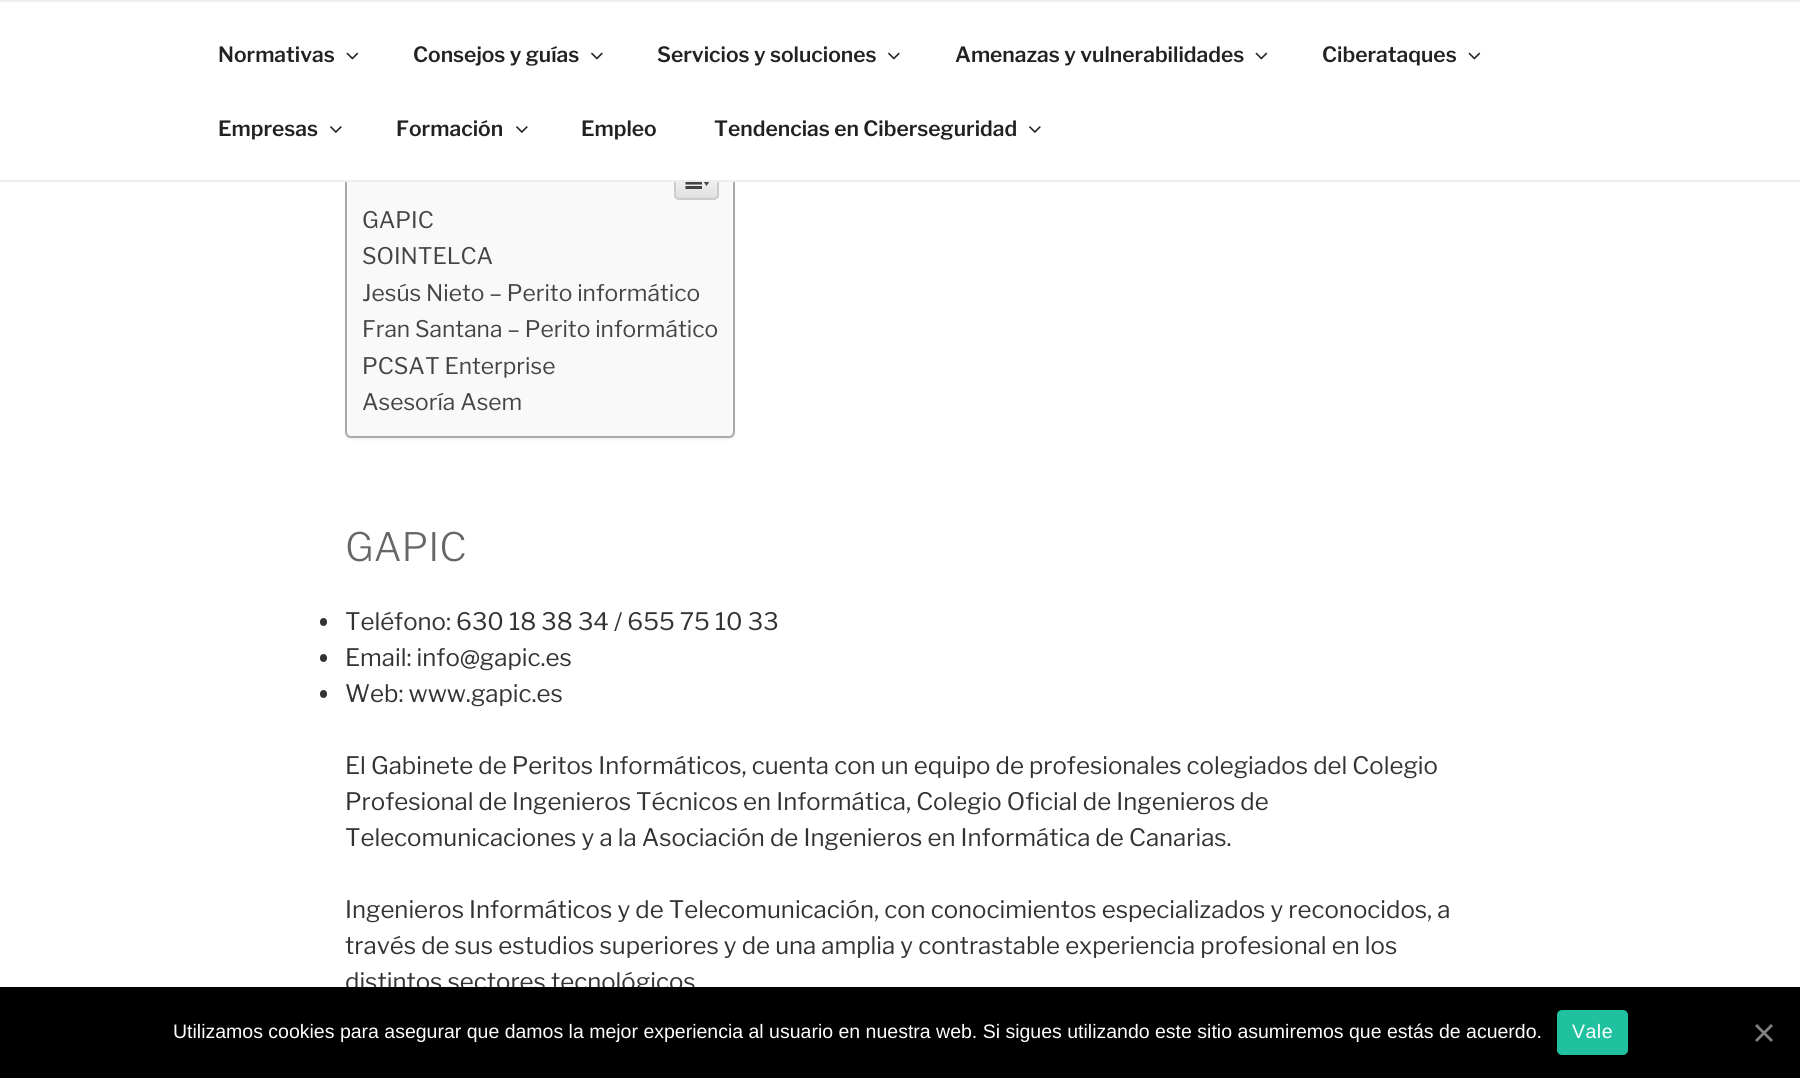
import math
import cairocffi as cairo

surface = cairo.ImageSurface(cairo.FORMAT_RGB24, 1800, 1078)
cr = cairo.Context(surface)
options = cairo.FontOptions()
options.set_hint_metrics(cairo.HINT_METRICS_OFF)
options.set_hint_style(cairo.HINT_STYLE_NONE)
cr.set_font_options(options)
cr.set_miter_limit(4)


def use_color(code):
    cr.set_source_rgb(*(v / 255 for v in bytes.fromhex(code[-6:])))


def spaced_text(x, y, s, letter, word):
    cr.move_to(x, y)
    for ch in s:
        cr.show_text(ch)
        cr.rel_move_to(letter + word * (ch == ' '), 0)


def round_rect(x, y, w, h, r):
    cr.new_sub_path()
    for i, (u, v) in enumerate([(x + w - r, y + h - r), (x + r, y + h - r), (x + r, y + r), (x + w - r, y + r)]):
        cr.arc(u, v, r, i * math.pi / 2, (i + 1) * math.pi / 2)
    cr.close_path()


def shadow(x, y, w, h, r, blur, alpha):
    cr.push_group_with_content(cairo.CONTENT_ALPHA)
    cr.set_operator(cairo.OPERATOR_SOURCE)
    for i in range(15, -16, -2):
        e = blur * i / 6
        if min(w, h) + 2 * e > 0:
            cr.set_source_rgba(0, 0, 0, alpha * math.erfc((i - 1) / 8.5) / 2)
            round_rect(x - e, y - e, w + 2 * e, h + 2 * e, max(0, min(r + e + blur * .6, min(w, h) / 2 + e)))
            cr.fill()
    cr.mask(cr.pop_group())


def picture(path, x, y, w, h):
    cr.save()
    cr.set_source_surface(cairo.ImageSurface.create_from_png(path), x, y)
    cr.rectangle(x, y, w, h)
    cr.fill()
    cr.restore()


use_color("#ffffff")
cr.paint()
use_color("#000000")
shadow(345, 146, 390, 294, 6, 1, 0.05)
use_color("#f9f9f9")
round_rect(346, 145, 388, 292, 5)
cr.fill_preserve()
use_color("#aaaaaa")
cr.stroke()
cr.save()
round_rect(674, 164, 45, 36, 5)
cr.clip()
gradient = cairo.LinearGradient(696, 165, 696, 198)
gradient.add_color_stop_rgba(0, 1, 1, 1, 1)
gradient.add_color_stop_rgba(1, 0.878, 0.878, 0.878, 1)
cr.set_source(gradient)
cr.rectangle(674, 182, 45, 16)
cr.fill()
cr.restore()
round_rect(675, 165, 43, 34, 4)
use_color("#cccccc")
cr.stroke()
use_color("#ffffff")
cr.rectangle(344, 144, 392, 36)
cr.fill()
use_color("#eeeeee")
cr.rectangle(0, 0, 1800, 2)
cr.fill()
cr.rectangle(0, 180, 1800, 2)
cr.fill()
cr.select_font_face("Libre Franklin SemiBold")
cr.set_font_size(21)
use_color("#222222")
cr.move_to(218, 62)
cr.show_text("Normativas")
picture("img1.png", 346, 52, 13, 8)
cr.move_to(413, 62)
cr.show_text("Consejos y guías")
picture("img2.png", 591, 52, 12, 8)
cr.move_to(657, 62)
cr.show_text("Servicios y soluciones")
picture("img2.png", 888, 52, 12, 8)
cr.move_to(955, 62)
cr.show_text("Amenazas y vulnerabilidades")
picture("img1.png", 1255, 52, 13, 8)
cr.move_to(1322, 62)
cr.show_text("Ciberataques")
picture("img1.png", 1468, 52, 13, 8)
cr.move_to(218, 136)
cr.show_text("Empresas")
picture("img3.png", 330, 126, 12, 7)
cr.move_to(396, 136)
cr.show_text("Formación")
picture("img3.png", 516, 126, 12, 7)
cr.move_to(581, 136)
cr.show_text("Empleo")
cr.move_to(714, 136)
cr.show_text("Tendencias en Ciberseguridad")
picture("img3.png", 1029, 126, 12, 7)
picture("img4.png", 685, 182, 25, 7)
cr.select_font_face("Libre Franklin")
cr.set_font_size(22.75)
use_color("#444444")
cr.move_to(362, 228)
cr.show_text("GAPIC")
cr.move_to(362, 264)
cr.show_text("SOINTELCA")
cr.move_to(362, 301)
cr.show_text("Jesús Nieto – Perito informático")
cr.move_to(362, 337)
cr.show_text("Fran Santana – Perito informático")
cr.move_to(362, 374)
cr.show_text("PCSAT Enterprise")
cr.move_to(362, 410)
cr.show_text("Asesoría Asem")
cr.select_font_face("Libre Franklin Light")
cr.set_font_size(39)
use_color("#666666")
cr.move_to(345, 561)
cr.show_text("GAPIC")
use_color("#333333")
round_rect(320, 618, 7, 8, 3.5)
cr.fill()
cr.select_font_face("Libre Franklin")
cr.set_font_size(24)
cr.move_to(345, 630)
cr.show_text("Teléfono: 630 18 38 34 / 655 75 10 33")
round_rect(320, 654, 7, 8, 3.5)
cr.fill()
cr.move_to(345, 666)
cr.show_text("Email: info@gapic.es")
round_rect(320, 690, 7, 8, 3.5)
cr.fill()
cr.move_to(345, 702)
cr.show_text("Web: www.gapic.es")
cr.move_to(345, 774)
cr.show_text("El Gabinete de Peritos Informáticos, cuenta con un equipo de profesionales colegiados del Colegio")
cr.move_to(345, 810)
cr.show_text("Profesional de Ingenieros Técnicos en Informática, Colegio Oficial de Ingenieros de")
cr.move_to(345, 846)
cr.show_text("Telecomunicaciones y a la Asociación de Ingenieros en Informática de Canarias.")
cr.move_to(345, 918)
cr.show_text("Ingenieros Informáticos y de Telecomunicación, con conocimientos especializados y reconocidos, a")
cr.move_to(345, 954)
cr.show_text("través de sus estudios superiores y de una amplia y contrastable experiencia profesional en los")
cr.move_to(345, 990)
cr.show_text("distintos sectores tecnológicos")
use_color("#000000")
cr.rectangle(0, 987, 1800, 91)
cr.fill()
cr.select_font_face("Liberation Sans")
cr.set_font_size(19.5)
use_color("#ffffff")
cr.move_to(173, 1038)
cr.show_text("Utilizamos cookies para asegurar que damos la mejor experiencia al usuario en nuestra web. Si sigues utilizando este sitio asumiremos que estás de acuerdo.")
use_color("#20c19e")
round_rect(1557, 1010, 71, 45, 5)
cr.fill()
use_color("#ffffff")
spaced_text(1572, 1038, "Vale", 0.5, 0)
use_color("#808080")
cr.new_path()
cr.move_to(1771, 1024)
cr.line_to(1773, 1026)
cr.line_to(1757, 1042)
cr.line_to(1755, 1040)
cr.close_path()
cr.fill()
cr.new_path()
cr.move_to(1755, 1026)
cr.line_to(1757, 1024)
cr.line_to(1773, 1040)
cr.line_to(1771, 1042)
cr.close_path()
cr.fill()
surface.write_to_png("result.png")
